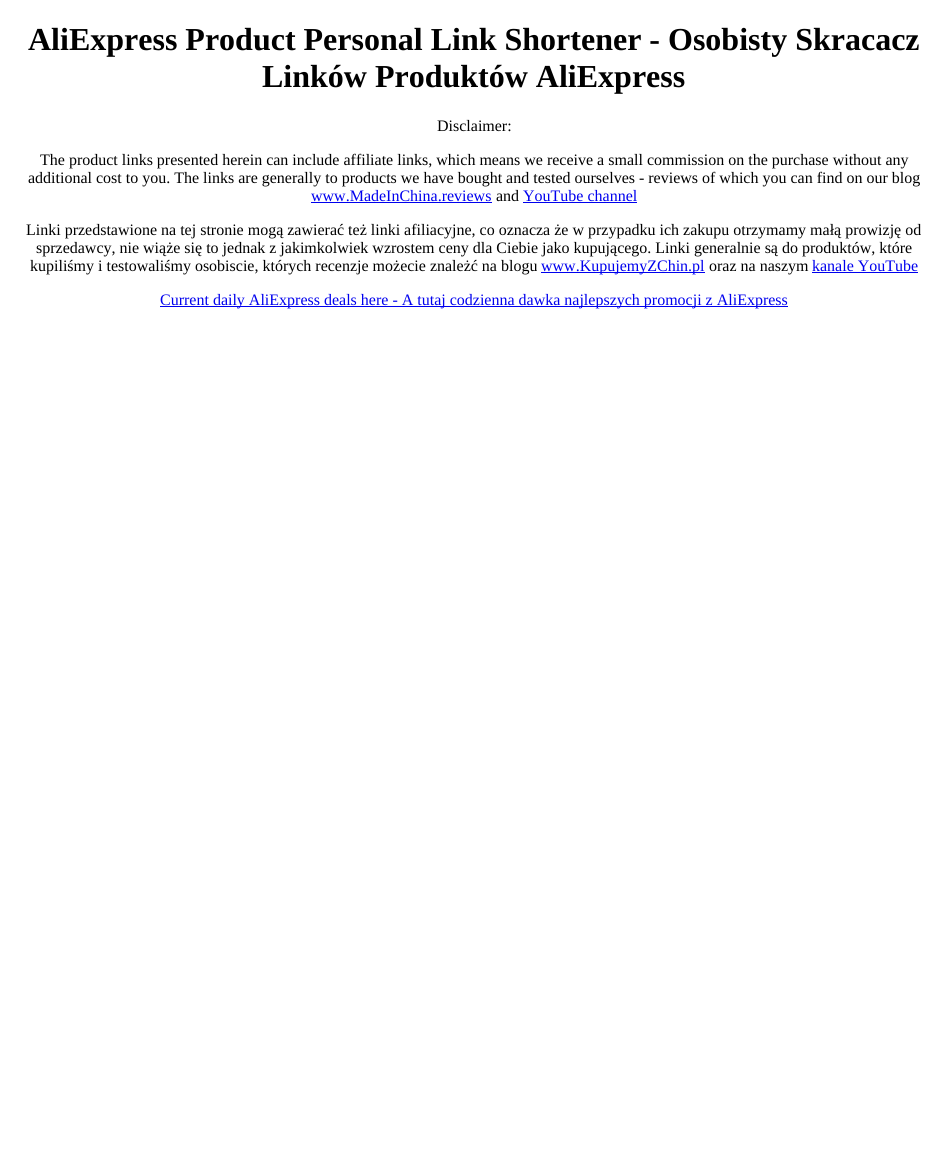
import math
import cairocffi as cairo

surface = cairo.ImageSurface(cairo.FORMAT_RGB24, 948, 1152)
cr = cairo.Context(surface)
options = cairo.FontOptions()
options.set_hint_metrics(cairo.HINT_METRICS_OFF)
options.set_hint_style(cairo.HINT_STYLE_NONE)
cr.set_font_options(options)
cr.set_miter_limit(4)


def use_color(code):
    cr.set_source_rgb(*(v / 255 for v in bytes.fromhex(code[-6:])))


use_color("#ffffff")
cr.paint()
cr.select_font_face("Liberation Serif", cairo.FONT_SLANT_NORMAL, cairo.FONT_WEIGHT_BOLD)
cr.set_font_size(32)
use_color("#000000")
cr.move_to(28, 50)
cr.show_text("AliExpress Product Personal Link Shortener - Osobisty Skracacz")
cr.move_to(262, 87)
cr.show_text("Linków Produktów AliExpress")
cr.select_font_face("Liberation Serif")
cr.set_font_size(16)
cr.move_to(437, 131)
cr.show_text("Disclaimer:")
cr.move_to(40, 165)
cr.show_text("The product links presented herein can include affiliate links, which means we receive a small commission on the purchase without any")
cr.move_to(28, 183)
cr.show_text("additional cost to you. The links are generally to products we have bought and tested ourselves - reviews of which you can find on our blog")
use_color("#0000ee")
cr.move_to(311, 201)
cr.show_text("www.MadeInChina.reviews")
cr.rectangle(311, 202, 181, 1)
cr.fill()
use_color("#000000")
cr.move_to(496, 201)
cr.show_text("and")
use_color("#0000ee")
cr.move_to(523, 201)
cr.show_text("YouTube channel")
cr.rectangle(523, 202, 114, 1)
cr.fill()
use_color("#000000")
cr.move_to(26, 235)
cr.show_text("Linki przedstawione na tej stronie mogą zawierać też linki afiliacyjne, co oznacza że w przypadku ich zakupu otrzymamy małą prowizję od")
cr.move_to(36, 253)
cr.show_text("sprzedawcy, nie wiąże się to jednak z jakimkolwiek wzrostem ceny dla Ciebie jako kupującego. Linki generalnie są do produktów, które")
cr.move_to(30, 271)
cr.show_text("kupiliśmy i testowaliśmy osobiscie, których recenzje możecie znależć na blogu")
use_color("#0000ee")
cr.rectangle(541, 272, 164, 1)
cr.fill()
cr.move_to(541, 271)
cr.show_text("www.KupujemyZChin.pl")
use_color("#000000")
cr.move_to(709, 271)
cr.show_text("oraz na naszym")
use_color("#0000ee")
cr.move_to(812, 271)
cr.show_text("kanale YouTube")
cr.rectangle(812, 272, 106, 1)
cr.fill()
cr.rectangle(160, 306, 628, 1)
cr.fill()
cr.move_to(160, 305)
cr.show_text("Current daily AliExpress deals here - A tutaj codzienna dawka najlepszych promocji z AliExpress")
surface.write_to_png("result.png")
